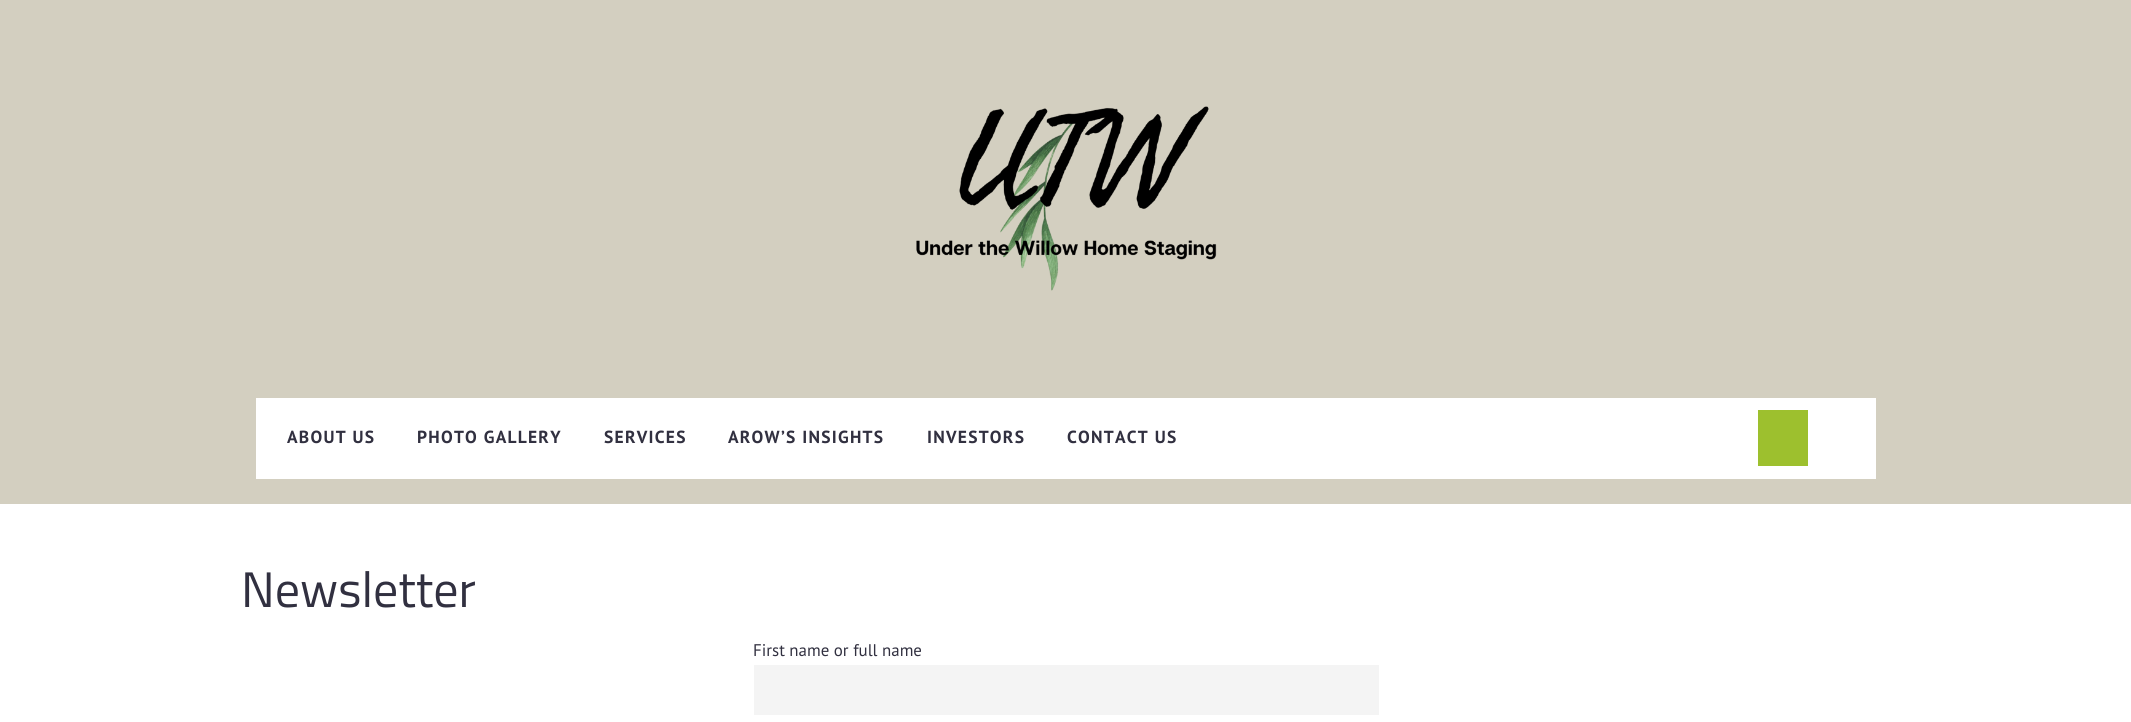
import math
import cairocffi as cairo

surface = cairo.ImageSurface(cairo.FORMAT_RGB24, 2131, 722)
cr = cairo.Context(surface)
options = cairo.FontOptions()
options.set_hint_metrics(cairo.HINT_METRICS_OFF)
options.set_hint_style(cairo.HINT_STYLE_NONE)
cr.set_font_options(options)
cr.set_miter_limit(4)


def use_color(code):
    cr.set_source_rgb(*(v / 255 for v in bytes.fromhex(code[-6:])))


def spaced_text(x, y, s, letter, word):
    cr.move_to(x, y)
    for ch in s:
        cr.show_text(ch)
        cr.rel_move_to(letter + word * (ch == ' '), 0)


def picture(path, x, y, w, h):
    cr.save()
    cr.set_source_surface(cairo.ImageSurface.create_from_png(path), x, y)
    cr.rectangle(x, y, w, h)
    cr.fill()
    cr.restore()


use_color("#ffffff")
cr.paint()
use_color("#d3cfc0")
cr.rectangle(0, 0, 2131, 504)
cr.fill()
picture("img1.png", 916, 106, 301, 185)
use_color("#ffffff")
cr.rectangle(256, 398, 1620, 81)
cr.fill()
cr.select_font_face("PT Sans", cairo.FONT_SLANT_NORMAL, cairo.FONT_WEIGHT_BOLD)
cr.set_font_size(17.5)
use_color("#313040")
spaced_text(287, 443, "ABOUT US", 1.25, 0)
spaced_text(417, 443, "PHOTO GALLERY", 1.25, 0)
spaced_text(604, 443, "SERVICES", 1.25, 0)
spaced_text(728, 443, "AROW’S INSIGHTS", 1.25, 0)
spaced_text(927, 443, "INVESTORS", 1.25, 0)
spaced_text(1067, 443, "CONTACT US", 1.25, 0)
use_color("#9dc02e")
cr.rectangle(1758, 410, 50, 56)
cr.fill()
cr.select_font_face("Titillium Web")
cr.set_font_size(50)
use_color("#313040")
cr.move_to(241, 607)
cr.show_text("Newsletter")
cr.select_font_face("PT Sans")
cr.set_font_size(16.9)
cr.move_to(753, 656)
cr.show_text("First name or full name")
use_color("#f4f4f4")
cr.rectangle(754, 665, 625, 50)
cr.fill()
surface.write_to_png("result.png")
